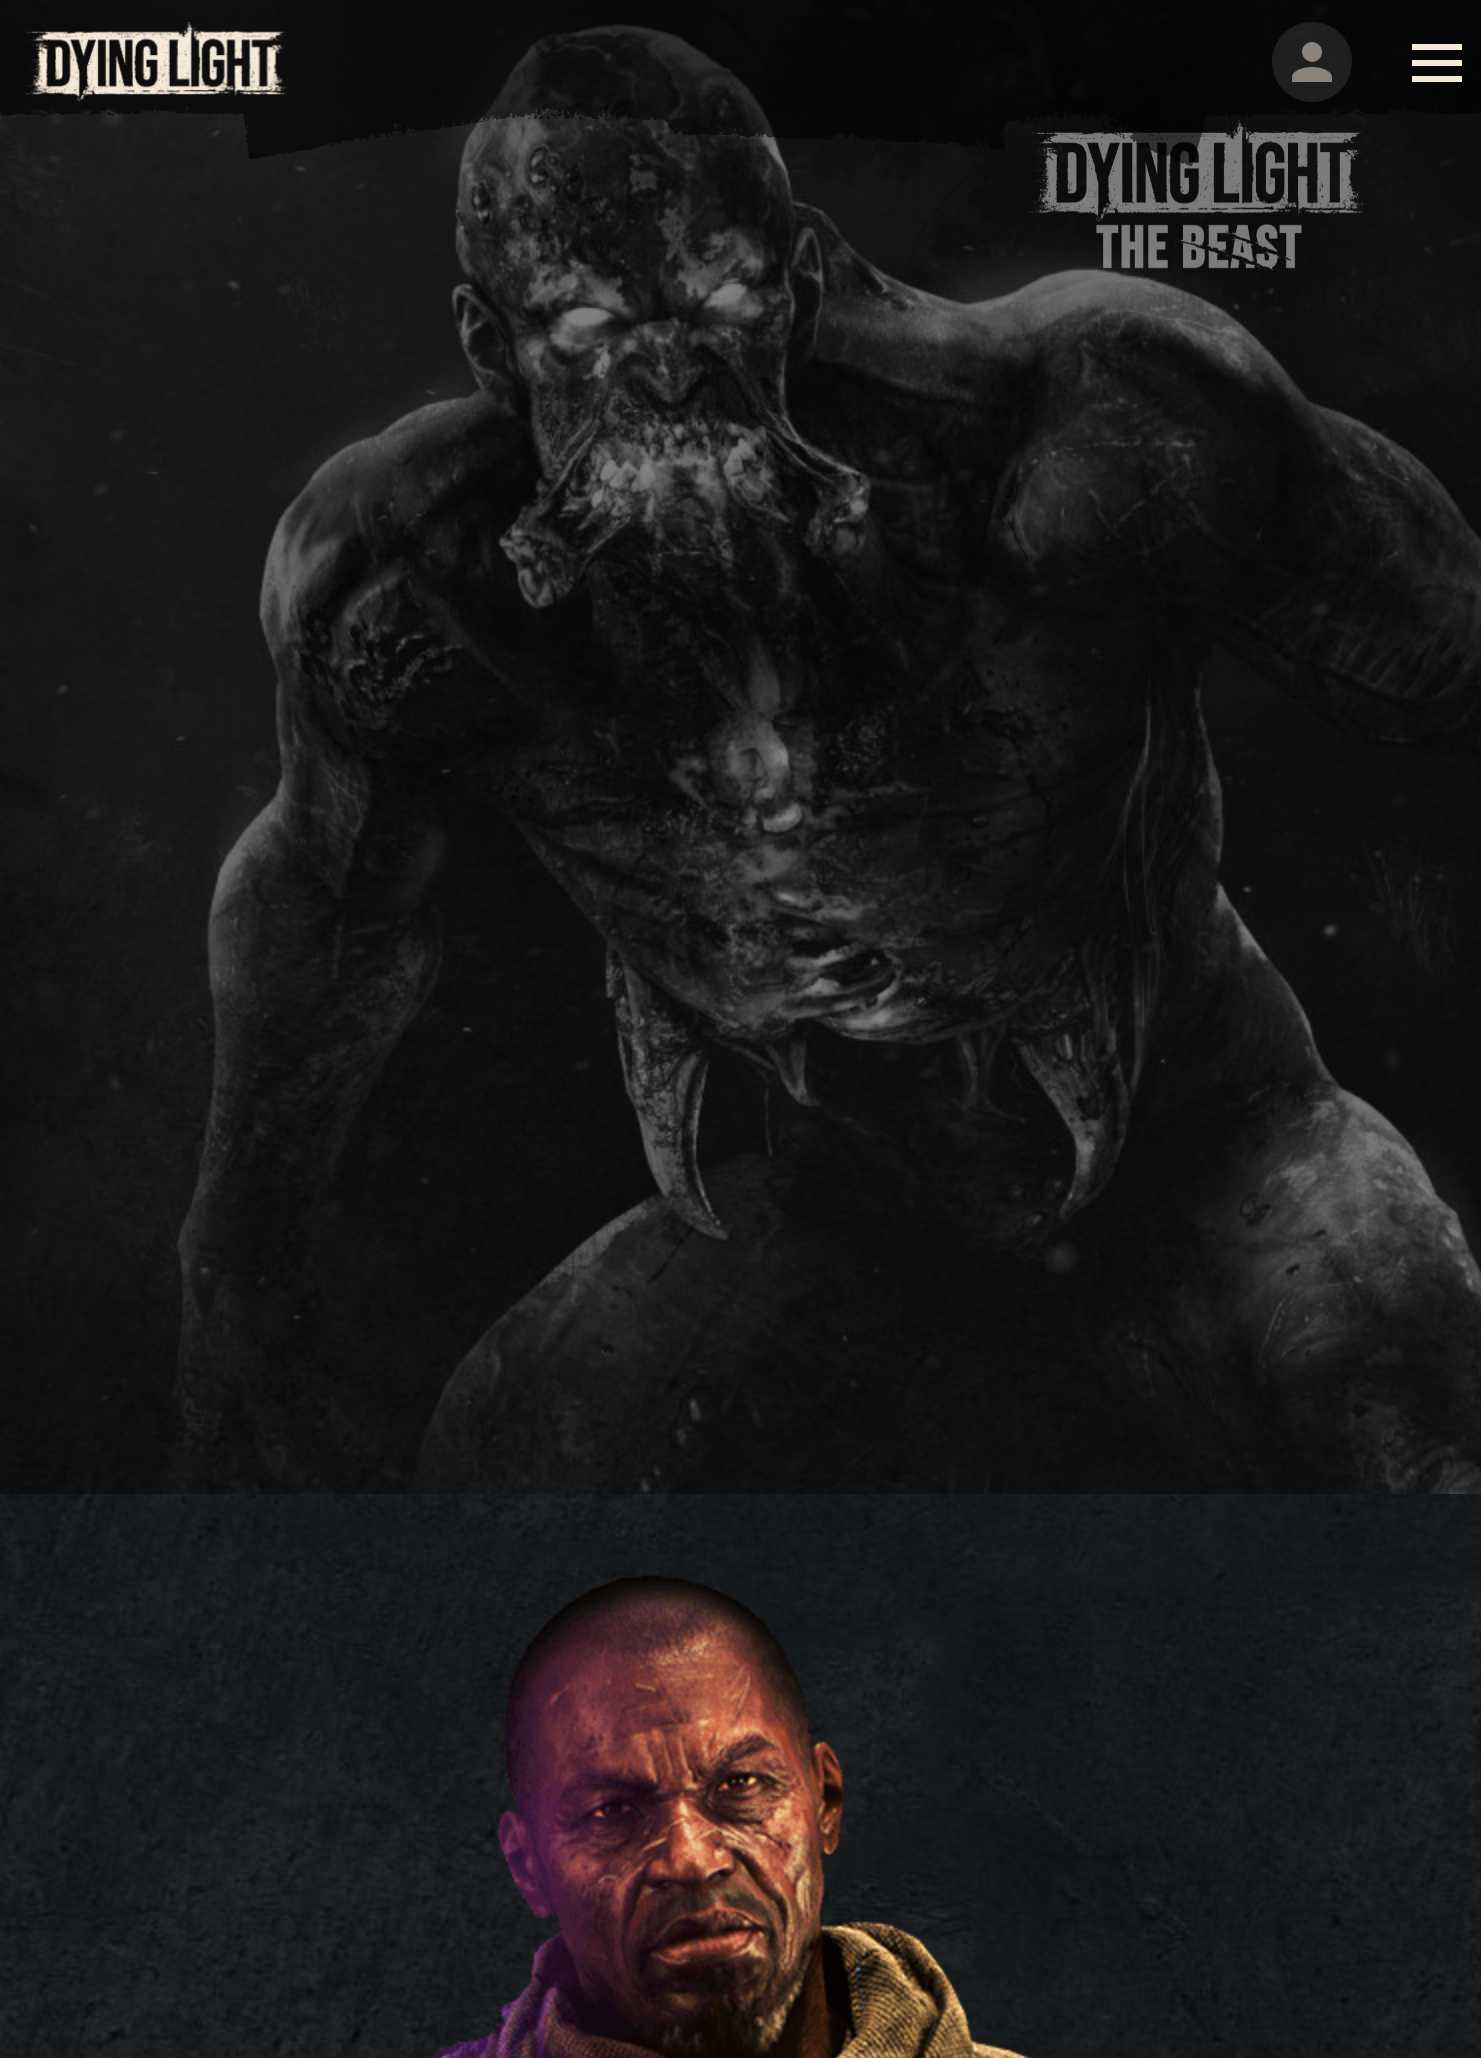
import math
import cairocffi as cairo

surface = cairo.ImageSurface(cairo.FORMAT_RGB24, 1481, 2058)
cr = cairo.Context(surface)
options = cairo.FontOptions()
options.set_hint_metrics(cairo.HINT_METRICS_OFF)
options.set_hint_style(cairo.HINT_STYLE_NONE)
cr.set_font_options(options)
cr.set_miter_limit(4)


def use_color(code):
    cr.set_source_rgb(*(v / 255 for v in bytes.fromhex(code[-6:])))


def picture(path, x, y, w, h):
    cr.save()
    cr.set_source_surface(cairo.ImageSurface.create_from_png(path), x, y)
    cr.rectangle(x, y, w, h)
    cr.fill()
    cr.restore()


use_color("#ffffff")
cr.paint()
picture("img1.png", 0, 0, 1481, 2058)
picture("img2.png", 0, 0, 1481, 1494)
picture("img3.png", 1028, 120, 341, 150)
picture("img4.png", 0, 0, 1481, 166)
picture("img5.png", 25, 22, 264, 80)
cr.set_source_rgba(1, 1, 1, 0.1)
cr.arc(1312, 62, 40, 0, 2 * math.pi)
cr.fill()
picture("img6.png", 1292, 42, 40, 40)
use_color("#f5ead7")
cr.rectangle(1412, 60, 50, 6)
cr.fill()
cr.rectangle(1412, 44, 50, 6)
cr.fill()
cr.rectangle(1412, 76, 50, 6)
cr.fill()
picture("img7.png", 434, 1574, 599, 484)
surface.write_to_png("result.png")
